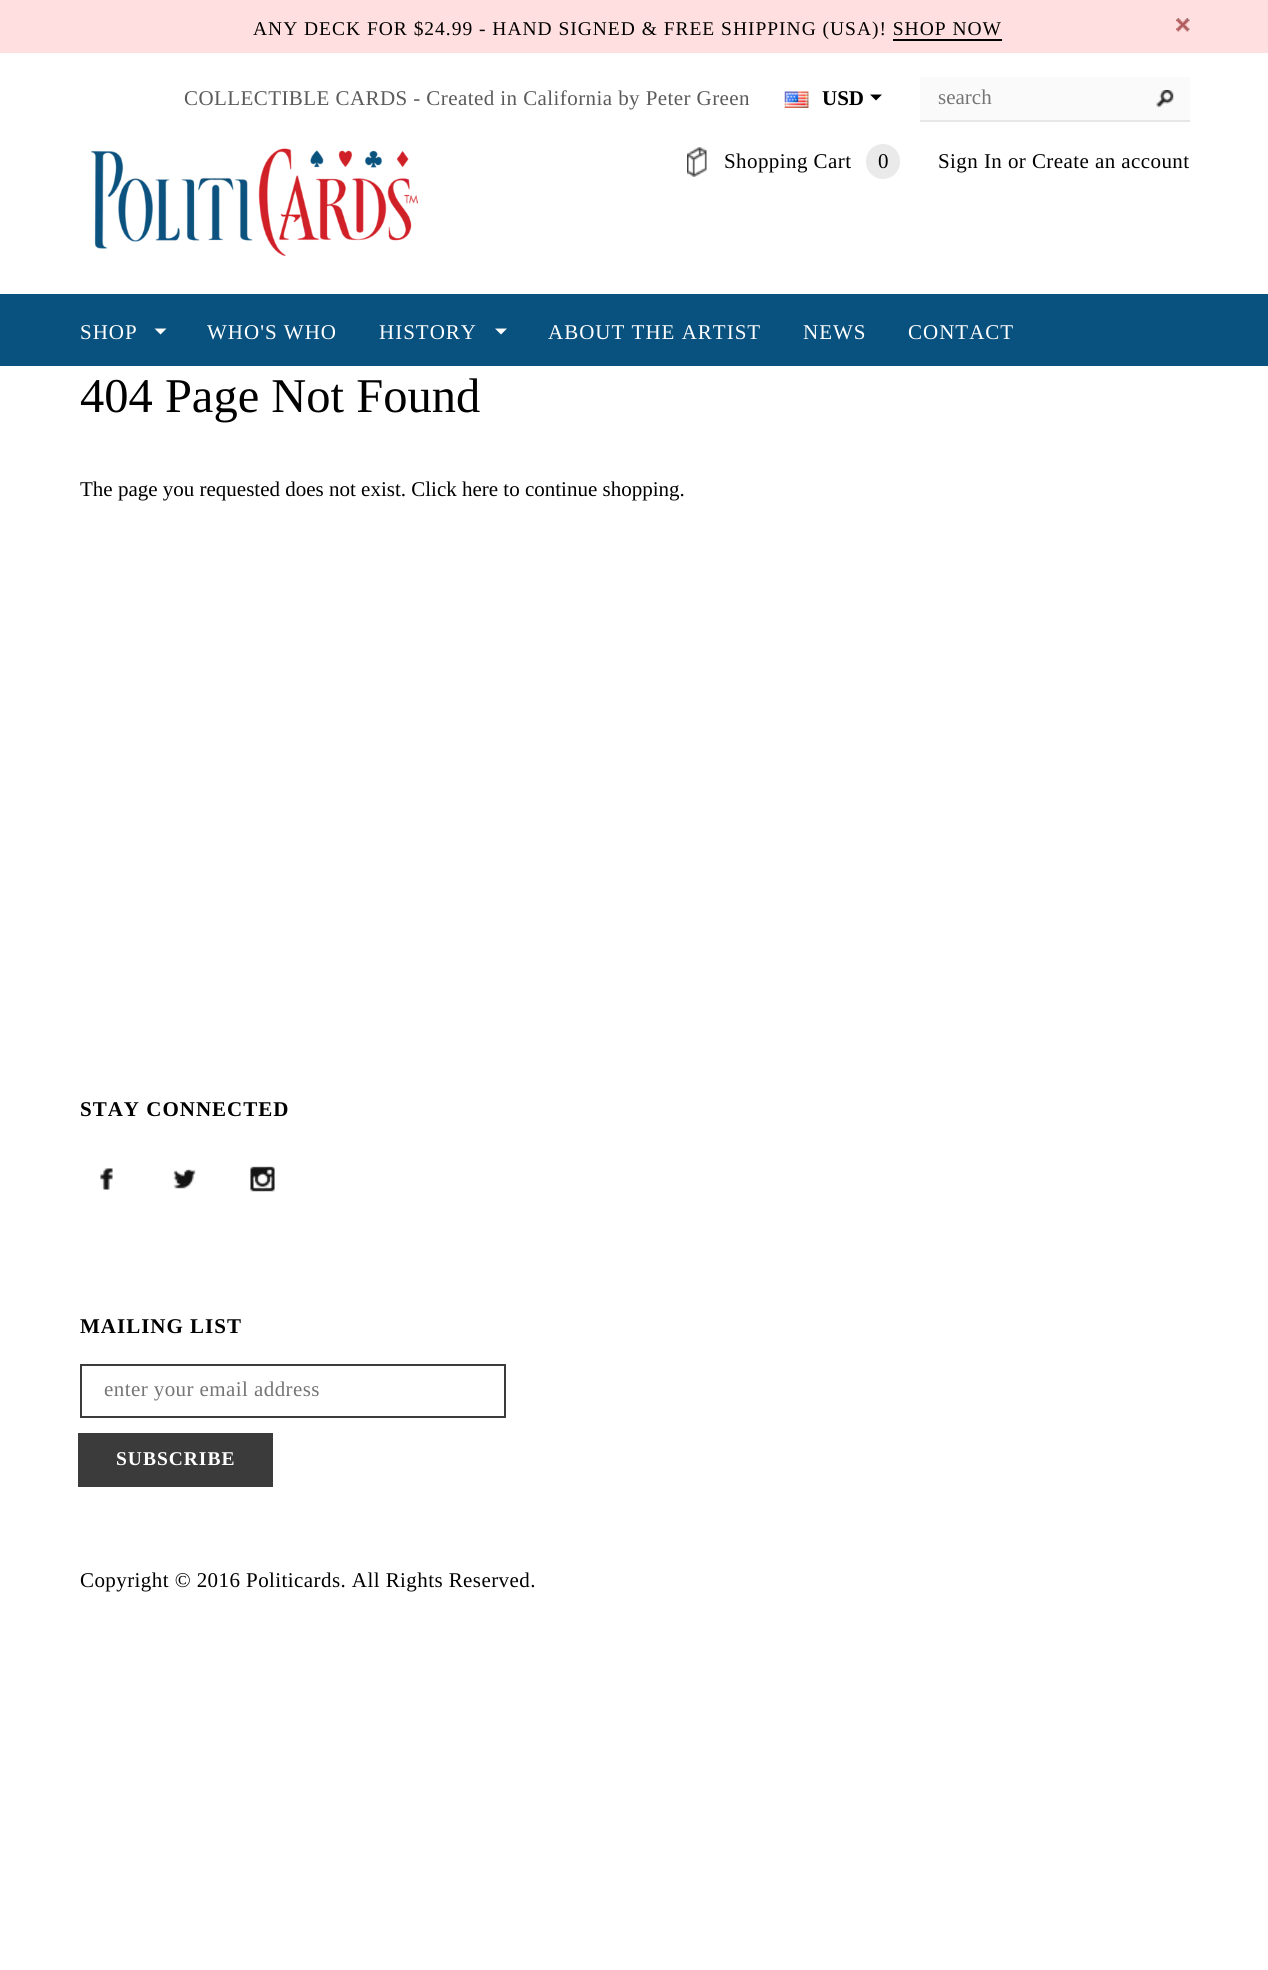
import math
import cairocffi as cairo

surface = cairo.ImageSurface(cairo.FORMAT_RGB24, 1268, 1970)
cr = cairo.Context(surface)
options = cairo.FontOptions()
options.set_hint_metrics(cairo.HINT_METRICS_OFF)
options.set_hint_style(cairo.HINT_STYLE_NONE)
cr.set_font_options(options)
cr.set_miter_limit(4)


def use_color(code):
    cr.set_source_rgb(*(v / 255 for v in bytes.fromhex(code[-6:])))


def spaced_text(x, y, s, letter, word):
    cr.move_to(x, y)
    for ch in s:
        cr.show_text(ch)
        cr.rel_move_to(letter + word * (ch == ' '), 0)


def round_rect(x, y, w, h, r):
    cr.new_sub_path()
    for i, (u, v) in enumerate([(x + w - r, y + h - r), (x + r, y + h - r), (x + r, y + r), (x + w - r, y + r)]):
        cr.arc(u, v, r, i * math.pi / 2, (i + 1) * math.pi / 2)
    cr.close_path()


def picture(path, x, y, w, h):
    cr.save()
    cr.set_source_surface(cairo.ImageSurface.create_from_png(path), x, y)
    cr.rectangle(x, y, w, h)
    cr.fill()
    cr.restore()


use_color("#ffffff")
cr.paint()
use_color("#ffdfdf")
cr.rectangle(0, 0, 1268, 53)
cr.fill()
cr.select_font_face("Liberation Serif")
cr.set_font_size(19.5)
use_color("#000000")
spaced_text(253, 35, "ANY DECK FOR $24.99 - HAND SIGNED & FREE SHIPPING (USA)! SHOP NOW", 0.98, 0)
picture("img1.png", 1176, 18, 14, 14)
cr.rectangle(893, 39, 109, 2)
cr.fill()
cr.set_font_size(21)
use_color("#5b5b5b")
spaced_text(184, 105, "COLLECTIBLE CARDS - Created in California by Peter Green", 0.42, 0)
picture("img2.png", 784, 91, 25, 17)
cr.select_font_face("Liberation Serif", cairo.FONT_SLANT_NORMAL, cairo.FONT_WEIGHT_BOLD)
use_color("#000000")
cr.move_to(822, 105)
cr.show_text("USD")
cr.new_path()
cr.move_to(870, 94.5)
cr.line_to(882, 94.5)
cr.line_to(876, 100.5)
cr.close_path()
cr.fill()
use_color("#fafafa")
cr.rectangle(920, 77, 270, 43)
cr.fill()
use_color("#e7e7e7")
cr.rectangle(920, 120, 270, 2)
cr.fill()
cr.select_font_face("Liberation Serif")
use_color("#757575")
cr.move_to(938, 104)
cr.show_text("search")
picture("img3.png", 1156, 90, 18, 18)
picture("img4.png", 91, 148, 328, 108)
picture("img5.png", 687, 147, 20, 30)
use_color("#000000")
spaced_text(724, 168, "Shopping Cart", 0.42, 0)
use_color("#eaeaea")
round_rect(866, 144, 34, 35, 17)
cr.fill()
use_color("#000000")
spaced_text(878, 168, "0", 0.42, 0)
spaced_text(938, 168, "Sign In or Create an account", 0.42, 0)
use_color("#09517e")
cr.rectangle(0, 294, 1268, 72)
cr.fill()
use_color("#ffffff")
spaced_text(80, 339, "SHOP", 1, 0)
cr.new_path()
cr.move_to(154.5, 328.5)
cr.line_to(166.5, 328.5)
cr.line_to(160.5, 334.5)
cr.close_path()
cr.fill()
spaced_text(207, 339, "WHO'S WHO", 1, 0)
spaced_text(379, 339, "HISTORY", 1, 0)
cr.new_path()
cr.move_to(495, 328.5)
cr.line_to(507, 328.5)
cr.line_to(501, 334.5)
cr.close_path()
cr.fill()
spaced_text(548, 339, "ABOUT THE ARTIST", 1, 0)
spaced_text(803, 339, "NEWS", 1, 0)
spaced_text(908, 339, "CONTACT", 1, 0)
cr.set_font_size(48.5)
use_color("#000000")
cr.move_to(80, 412)
cr.show_text("404 Page Not Found")
cr.set_font_size(21)
cr.move_to(80, 496)
cr.show_text("The page you requested does not exist. Click here to continue shopping.")
cr.select_font_face("Liberation Serif", cairo.FONT_SLANT_NORMAL, cairo.FONT_WEIGHT_BOLD)
spaced_text(80, 1116, "STAY CONNECTED", 1, 0)
picture("img6.png", 100, 1168, 13, 22)
picture("img7.png", 173, 1169, 23, 20)
picture("img8.png", 250, 1166, 25, 26)
spaced_text(80, 1333, "MAILING LIST", 1, 0)
cr.rectangle(81, 1365, 424, 52)
use_color("#3b3b3b")
cr.stroke()
cr.select_font_face("Liberation Serif")
use_color("#757575")
spaced_text(104, 1396, "enter your email address", 0.42, 0)
use_color("#3b3b3b")
cr.rectangle(78, 1433, 195, 54)
cr.fill()
cr.select_font_face("Liberation Serif", cairo.FONT_SLANT_NORMAL, cairo.FONT_WEIGHT_BOLD)
cr.set_font_size(19.5)
use_color("#ffffff")
spaced_text(116, 1465, "SUBSCRIBE", 0.98, 0)
cr.select_font_face("Liberation Serif")
cr.set_font_size(21)
use_color("#000000")
spaced_text(80, 1587, "Copyright © 2016 Politicards. All Rights Reserved.", 0.42, 0)
surface.write_to_png("result.png")
